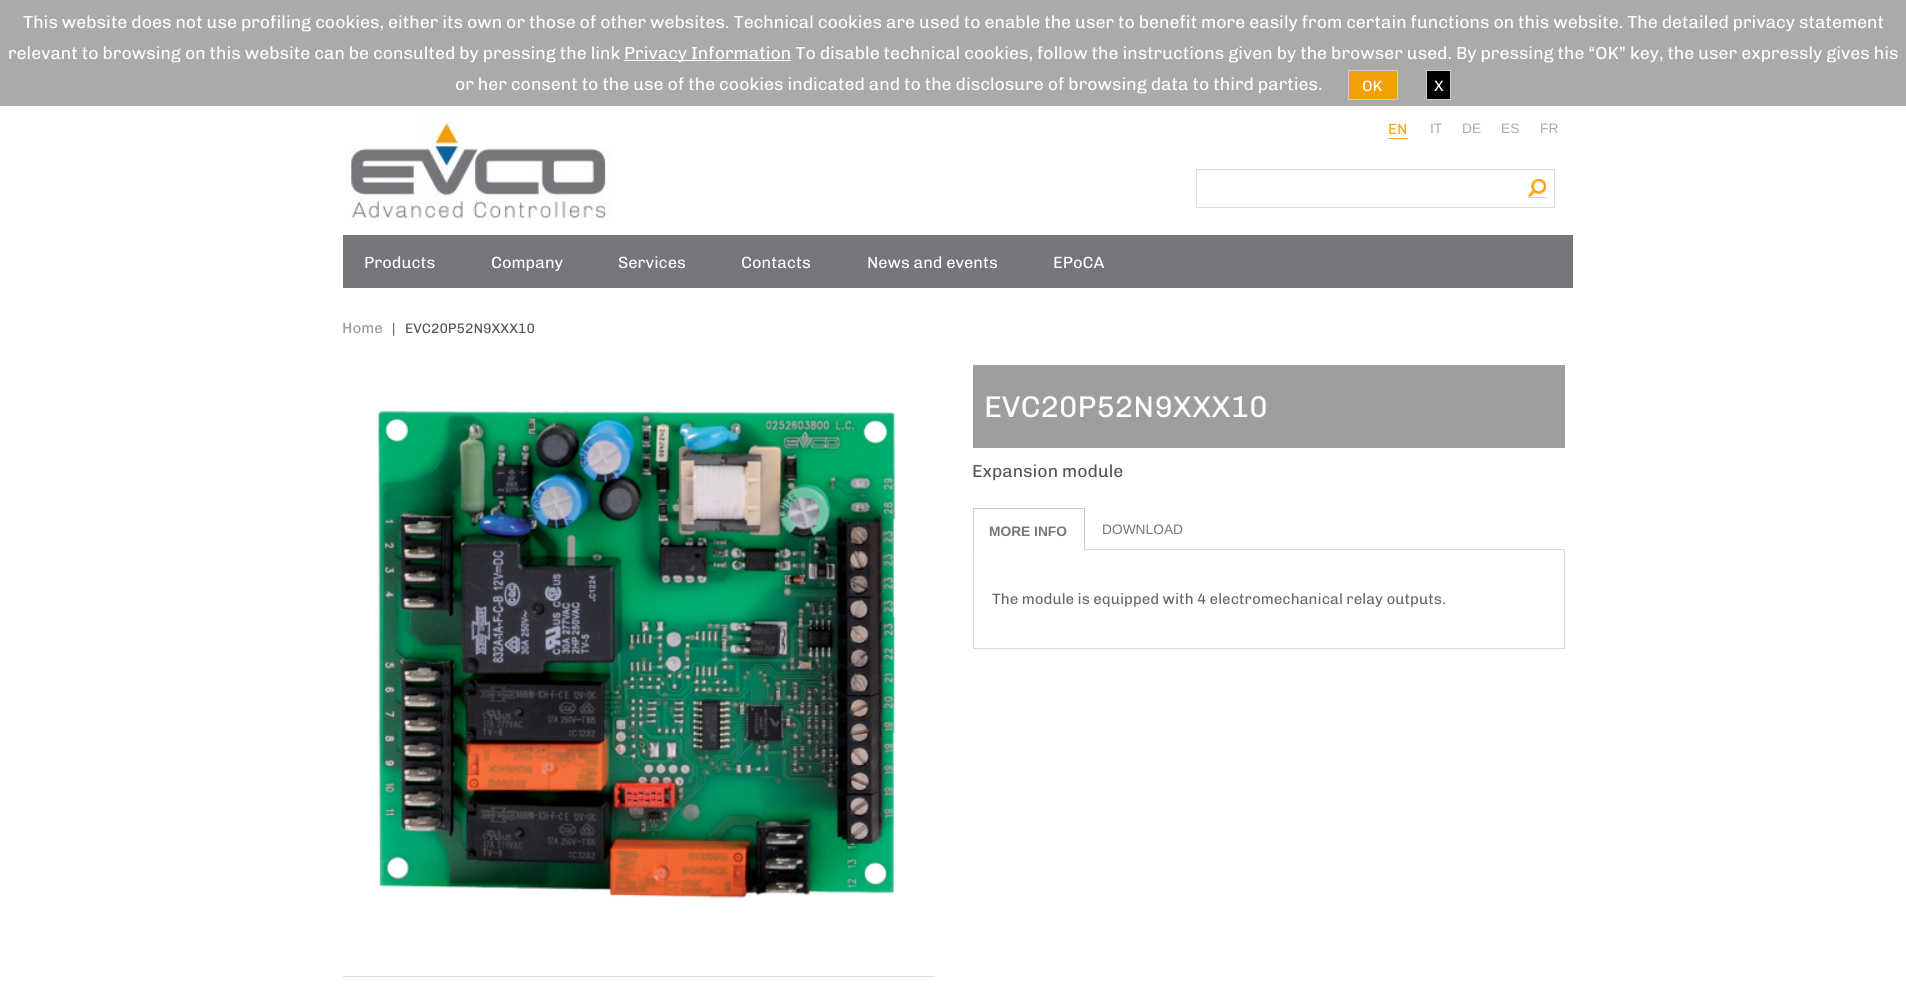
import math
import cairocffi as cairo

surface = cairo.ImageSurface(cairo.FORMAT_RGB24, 1906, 996)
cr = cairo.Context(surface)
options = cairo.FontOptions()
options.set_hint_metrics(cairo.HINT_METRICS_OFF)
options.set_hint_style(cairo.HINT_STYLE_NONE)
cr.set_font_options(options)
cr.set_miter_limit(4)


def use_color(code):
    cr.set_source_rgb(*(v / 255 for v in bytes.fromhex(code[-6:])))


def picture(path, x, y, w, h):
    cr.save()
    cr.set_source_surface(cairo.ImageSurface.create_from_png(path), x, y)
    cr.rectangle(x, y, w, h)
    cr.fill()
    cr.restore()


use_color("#ffffff")
cr.paint()
use_color("#aaaaaa")
cr.rectangle(0, 0, 1906, 106)
cr.fill()
cr.select_font_face("Chivo")
cr.set_font_size(17.5)
use_color("#ffffff")
cr.move_to(23, 28)
cr.show_text("This website does not use profiling cookies, either its own or those of other websites. Technical cookies are used to enable the user to benefit more easily from certain functions on this website. The detailed privacy statement")
cr.move_to(8, 59)
cr.show_text("relevant to browsing on this website can be consulted by pressing the link")
cr.rectangle(624, 60, 167, 1)
cr.fill()
cr.move_to(624, 59)
cr.show_text("Privacy Information To disable technical cookies, follow the instructions given by the browser used. By pressing the “OK” key, the user expressly gives his")
cr.move_to(455, 90)
cr.show_text("or her consent to the use of the cookies indicated and to the disclosure of browsing data to third parties.")
use_color("#f3a107")
cr.rectangle(1348.5, 70.5, 49, 29)
cr.fill_preserve()
use_color("#cdcdcd")
cr.set_line_width(1)
cr.stroke()
cr.set_font_size(15)
use_color("#ffffff")
cr.move_to(1362, 91)
cr.show_text("OK")
use_color("#000000")
cr.rectangle(1426.5, 70.5, 24, 29)
cr.fill_preserve()
use_color("#cdcdcd")
cr.stroke()
use_color("#ffffff")
cr.move_to(1434, 91)
cr.show_text("X")
picture("img1.png", 351, 119, 260, 100)
use_color("#f9a713")
cr.rectangle(1389, 138, 19, 1)
cr.fill()
cr.move_to(1388, 134)
cr.show_text("EN")
cr.select_font_face("Liberation Sans")
cr.set_font_size(13.75)
use_color("#aaaaaa")
cr.move_to(1430, 133)
cr.show_text("IT")
cr.move_to(1462, 133)
cr.show_text("DE")
cr.move_to(1501, 133)
cr.show_text("ES")
cr.move_to(1540, 133)
cr.show_text("FR")
cr.rectangle(1196.5, 169.5, 358, 38)
use_color("#dddddd")
cr.stroke()
use_color("#f3a107")
cr.rectangle(1528, 179, 18, 19)
cr.fill()
picture("img2.png", 1528, 179, 18, 19)
use_color("#757679")
cr.rectangle(343, 235, 1230, 53)
cr.fill()
cr.select_font_face("Chivo")
cr.set_font_size(16.25)
use_color("#ffffff")
cr.move_to(364, 268)
cr.show_text("Products")
cr.move_to(491, 268)
cr.show_text("Company")
cr.move_to(618, 268)
cr.show_text("Services")
cr.move_to(741, 268)
cr.show_text("Contacts")
cr.move_to(867, 268)
cr.show_text("News and events")
cr.move_to(1053, 268)
cr.show_text("EPoCA")
cr.set_font_size(15)
use_color("#999999")
cr.move_to(342, 333)
cr.show_text("Home")
cr.set_font_size(13.75)
use_color("#555555")
cr.move_to(392, 333)
cr.show_text("|")
cr.move_to(405, 333)
cr.show_text("EVC20P52N9XXX10")
picture("img3.png", 377, 410, 519, 488)
use_color("#dddddd")
cr.rectangle(343, 976, 592, 1)
cr.fill()
use_color("#9d9e9e")
cr.rectangle(973, 365, 592, 83)
cr.fill()
cr.set_font_size(30)
use_color("#ffffff")
cr.move_to(984, 417)
cr.show_text("EVC20P52N9XXX10")
cr.set_font_size(17.5)
use_color("#555555")
cr.move_to(972, 477)
cr.show_text("Expansion module")
cr.rectangle(973.5, 549.5, 591, 99)
use_color("#d8d9da")
cr.stroke()
use_color("#ffffff")
cr.rectangle(974, 549, 110, 1)
cr.fill()
use_color("#cccccc")
cr.rectangle(973, 508, 112, 1)
cr.fill()
cr.rectangle(1084, 508, 1, 42)
cr.fill()
cr.rectangle(973, 508, 1, 42)
cr.fill()
cr.select_font_face("Liberation Sans", cairo.FONT_SLANT_NORMAL, cairo.FONT_WEIGHT_BOLD)
cr.set_font_size(13.75)
use_color("#777777")
cr.move_to(989, 536)
cr.show_text("MORE INFO")
cr.select_font_face("Liberation Sans")
cr.move_to(1102, 534)
cr.show_text("DOWNLOAD")
cr.select_font_face("Chivo")
cr.set_font_size(15)
use_color("#676767")
cr.move_to(992, 604)
cr.show_text("The module is equipped with 4 electromechanical relay outputs.")
surface.write_to_png("result.png")
